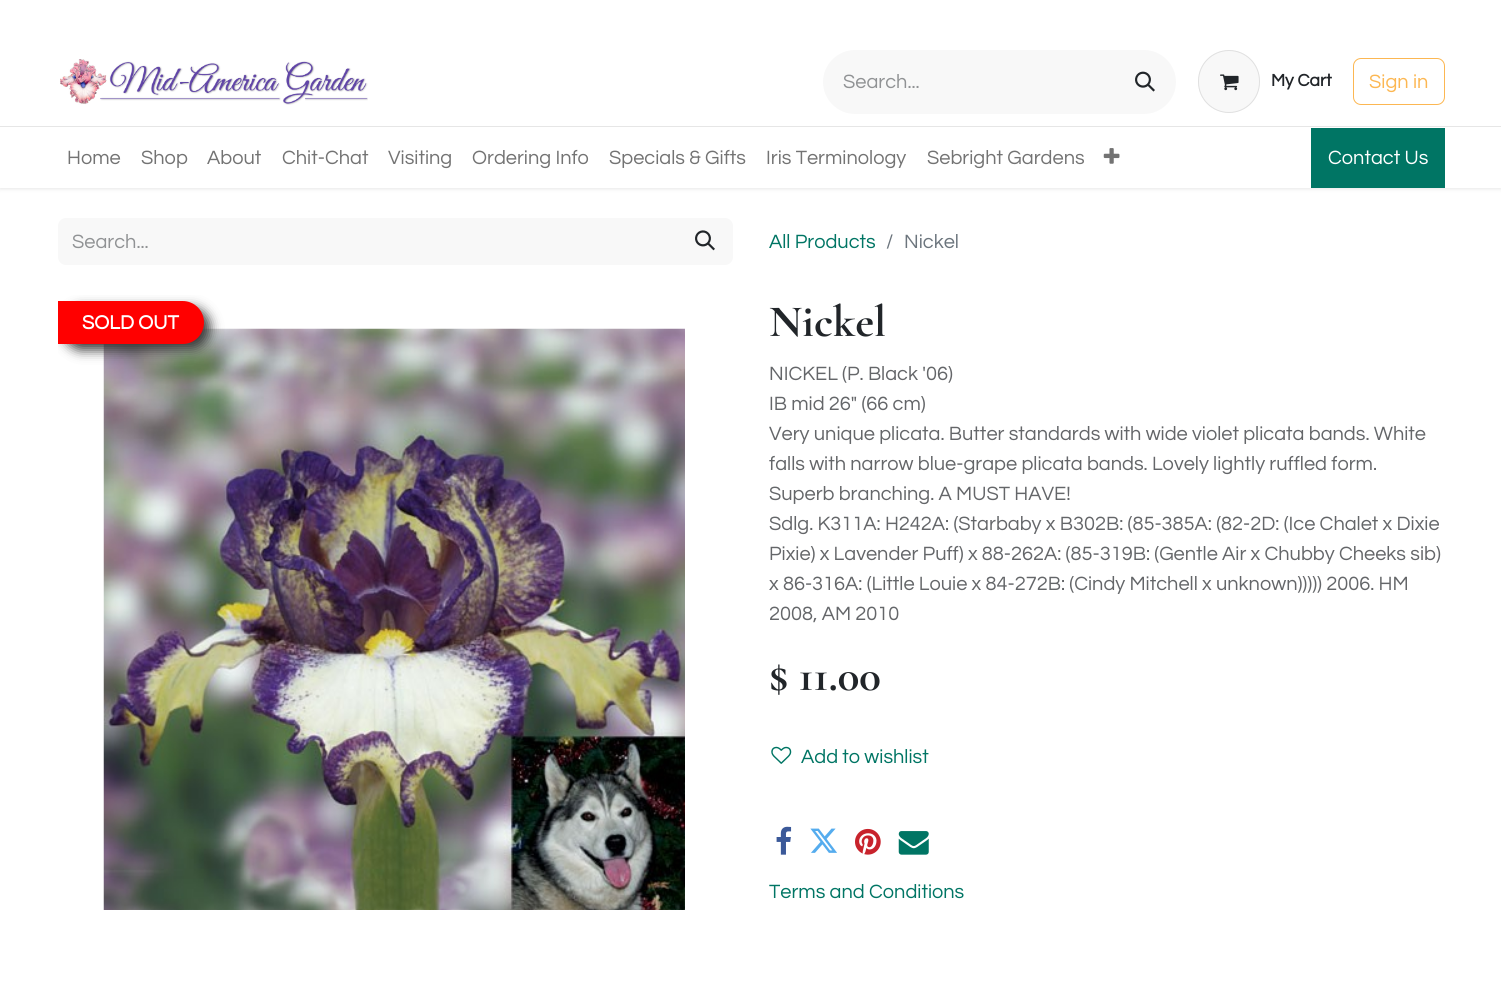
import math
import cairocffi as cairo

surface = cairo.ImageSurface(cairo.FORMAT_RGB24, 1501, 995)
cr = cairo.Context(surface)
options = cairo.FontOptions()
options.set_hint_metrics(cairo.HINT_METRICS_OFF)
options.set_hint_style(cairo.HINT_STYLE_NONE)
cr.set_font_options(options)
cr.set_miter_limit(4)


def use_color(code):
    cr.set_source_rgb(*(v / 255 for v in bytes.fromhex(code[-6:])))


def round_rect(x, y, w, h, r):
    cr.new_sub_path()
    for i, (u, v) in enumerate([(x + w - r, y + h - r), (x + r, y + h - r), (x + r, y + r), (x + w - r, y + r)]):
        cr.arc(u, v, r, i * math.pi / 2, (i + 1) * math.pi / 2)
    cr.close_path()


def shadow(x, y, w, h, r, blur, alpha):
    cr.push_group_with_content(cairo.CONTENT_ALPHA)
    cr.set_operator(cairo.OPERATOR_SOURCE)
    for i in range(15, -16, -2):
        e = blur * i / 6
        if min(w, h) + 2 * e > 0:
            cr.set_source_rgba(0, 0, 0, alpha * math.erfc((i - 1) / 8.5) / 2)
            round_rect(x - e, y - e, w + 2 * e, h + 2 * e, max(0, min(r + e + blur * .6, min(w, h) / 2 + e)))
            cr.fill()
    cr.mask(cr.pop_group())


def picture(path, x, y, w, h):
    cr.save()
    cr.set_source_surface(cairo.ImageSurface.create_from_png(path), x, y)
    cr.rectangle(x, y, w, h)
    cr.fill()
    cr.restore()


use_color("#ffffff")
cr.paint()
use_color("#000000")
shadow(0, 1, 1501, 188, 0, 2, 0.1)
use_color("#ffffff")
cr.rectangle(0, 0, 1501, 188)
cr.fill()
picture("img1.png", 60, 59, 308, 46)
use_color("#f8f8f8")
cr.new_path()
cr.move_to(855, 50)
cr.line_to(1115, 50)
cr.line_to(1115, 114)
cr.line_to(855, 114)
cr.curve_to(837.5, 114, 823, 99.5, 823, 82)
cr.curve_to(823, 64.5, 837.5, 50, 855, 50)
cr.close_path()
cr.fill()
cr.select_font_face("Questrial")
cr.set_font_size(20)
use_color("#909294")
cr.move_to(843, 88)
cr.show_text("Search...")
use_color("#f8f8f8")
cr.new_path()
cr.move_to(1114, 50)
cr.line_to(1144, 50)
cr.curve_to(1161.5, 50, 1176, 64.5, 1176, 82)
cr.curve_to(1176, 99.5, 1161.5, 114, 1144, 114)
cr.line_to(1114, 114)
cr.close_path()
cr.fill()
picture("img2.png", 1135, 71, 20, 21)
round_rect(1198, 50, 62, 63, 31)
cr.fill()
round_rect(1198.5, 50.5, 61, 62, 30.5)
cr.set_source_rgba(0, 0, 0, 0.1)
cr.set_line_width(1)
cr.stroke()
picture("img3.png", 1220, 74, 19, 17)
cr.select_font_face("Questrial", cairo.FONT_SLANT_NORMAL, cairo.FONT_WEIGHT_BOLD)
cr.set_font_size(17.5)
use_color("#212529")
cr.move_to(1271, 86)
cr.show_text("My Cart")
round_rect(1353.5, 58.5, 91, 46, 7.5)
use_color("#fcb752")
cr.stroke()
cr.select_font_face("Questrial")
cr.set_font_size(20)
cr.move_to(1369, 88)
cr.show_text("Sign in")
use_color("#e6e6e6")
cr.rectangle(0, 126, 1501, 1)
cr.fill()
use_color("#737373")
cr.move_to(67, 164)
cr.show_text("Home")
cr.move_to(141, 164)
cr.show_text("Shop")
cr.move_to(207, 164)
cr.show_text("About")
cr.move_to(282, 164)
cr.show_text("Chit-Chat")
cr.move_to(388, 164)
cr.show_text("Visiting")
cr.move_to(472, 164)
cr.show_text("Ordering Info")
cr.move_to(609, 164)
cr.show_text("Specials & Gifts")
cr.move_to(766, 164)
cr.show_text("Iris Terminology")
cr.move_to(927, 164)
cr.show_text("Sebright Gardens")
picture("img4.png", 1103, 148, 17, 16)
use_color("#007564")
cr.rectangle(1311, 128, 134, 60)
cr.fill()
use_color("#ffffff")
cr.move_to(1328, 164)
cr.show_text("Contact Us")
use_color("#f8f8f8")
cr.new_path()
cr.move_to(66, 218)
cr.line_to(680, 218)
cr.line_to(680, 265)
cr.line_to(66, 265)
cr.curve_to(61.5, 265, 58, 261.5, 58, 257)
cr.line_to(58, 226)
cr.curve_to(58, 221.5, 61.5, 218, 66, 218)
cr.close_path()
cr.fill()
use_color("#909294")
cr.move_to(72, 248)
cr.show_text("Search...")
use_color("#f8f8f8")
cr.new_path()
cr.move_to(679, 218)
cr.line_to(725, 218)
cr.curve_to(729.5, 218, 733, 221.5, 733, 226)
cr.line_to(733, 257)
cr.curve_to(733, 261.5, 729.5, 265, 725, 265)
cr.line_to(679, 265)
cr.close_path()
cr.fill()
picture("img5.png", 695, 230, 20, 21)
use_color("#007564")
cr.move_to(769, 248)
cr.show_text("All Products")
use_color("#6c757d")
cr.move_to(886, 248)
cr.show_text("/")
cr.move_to(904, 248)
cr.show_text("Nickel")
picture("img6.png", 103, 328, 582, 582)
cr.save()
cr.rectangle(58, 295, 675, 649)
cr.clip()
use_color("#3a3a3a")
shadow(64, 308, 146, 42, 21, 6, 1)
cr.restore()
use_color("#ff0000")
cr.new_path()
cr.move_to(58, 301)
cr.line_to(182.5, 301)
cr.curve_to(194.5, 301, 204, 310.5, 204, 322.5)
cr.curve_to(204, 334.5, 194.5, 344, 182.5, 344)
cr.line_to(58, 344)
cr.close_path()
cr.fill()
cr.select_font_face("Questrial", cairo.FONT_SLANT_NORMAL, cairo.FONT_WEIGHT_BOLD)
use_color("#ffffff")
cr.move_to(82, 329)
cr.show_text("SOLD OUT")
cr.select_font_face("Cormorant Garamond", cairo.FONT_SLANT_NORMAL, cairo.FONT_WEIGHT_BOLD)
cr.set_font_size(45)
use_color("#212529")
cr.move_to(769, 336)
cr.show_text("Nickel")
cr.select_font_face("Questrial")
cr.set_font_size(20)
use_color("#646669")
cr.move_to(769, 380)
cr.show_text("NICKEL (P. Black '06)")
cr.move_to(769, 410)
cr.show_text("IB mid 26\" (66 cm)")
cr.move_to(769, 440)
cr.show_text("Very unique plicata. Butter standards with wide violet plicata bands. White")
cr.move_to(769, 470)
cr.show_text("falls with narrow blue-grape plicata bands. Lovely lightly ruffled form.")
cr.move_to(769, 500)
cr.show_text("Superb branching. A MUST HAVE!")
cr.move_to(769, 530)
cr.show_text("Sdlg. K311A: H242A: (Starbaby x B302B: (85-385A: (82-2D: (Ice Chalet x Dixie")
cr.move_to(769, 560)
cr.show_text("Pixie) x Lavender Puff) x 88-262A: (85-319B: (Gentle Air x Chubby Cheeks sib)")
cr.move_to(769, 590)
cr.show_text("x 86-316A: (Little Louie x 84-272B: (Cindy Mitchell x unknown))))) 2006. HM")
cr.move_to(769, 620)
cr.show_text("2008, AM 2010")
cr.select_font_face("Cormorant Garamond", cairo.FONT_SLANT_NORMAL, cairo.FONT_WEIGHT_BOLD)
cr.set_font_size(45)
use_color("#212529")
cr.move_to(769, 690)
cr.show_text("$ 11.00")
picture("img7.png", 771, 746, 21, 18)
cr.select_font_face("Questrial")
cr.set_font_size(20)
use_color("#007564")
cr.move_to(801, 763)
cr.show_text("Add to wishlist")
picture("img8.png", 776, 826, 16, 29)
picture("img9.png", 810, 828, 27, 25)
picture("img10.png", 855, 828, 26, 27)
picture("img11.png", 898, 831, 31, 24)
cr.move_to(769, 898)
cr.show_text("Terms and Conditions")
surface.write_to_png("result.png")
